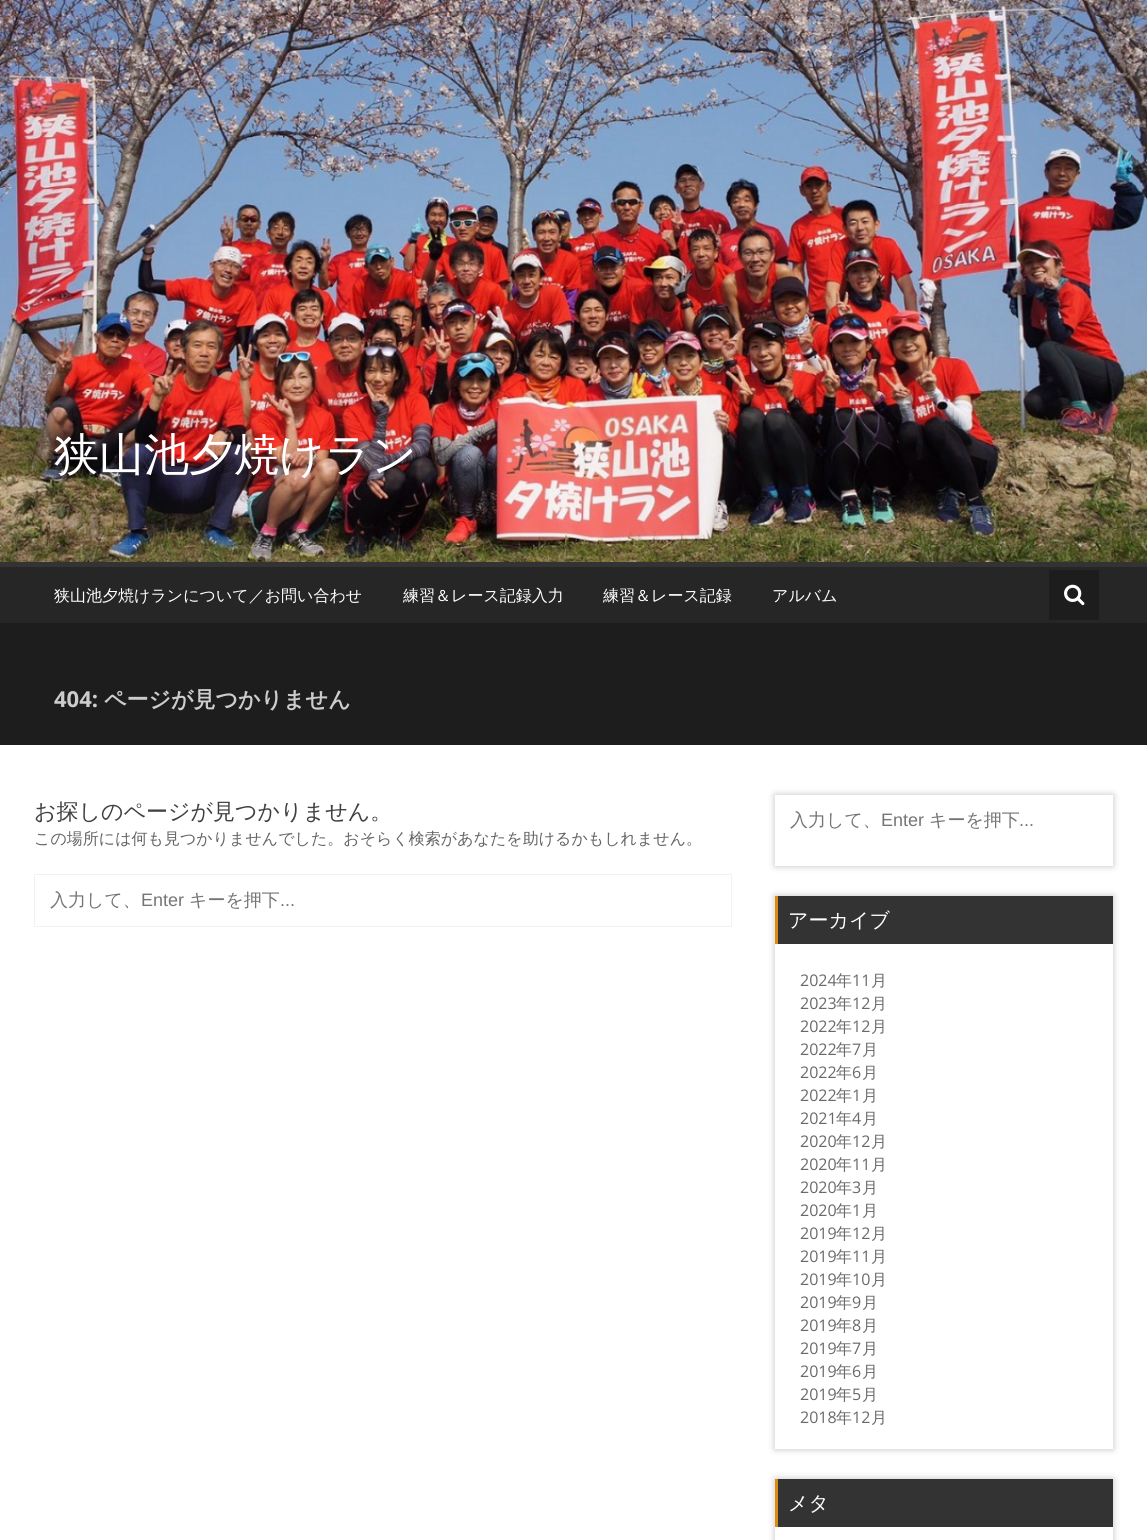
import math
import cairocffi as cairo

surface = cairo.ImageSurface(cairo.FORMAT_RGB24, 1147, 1540)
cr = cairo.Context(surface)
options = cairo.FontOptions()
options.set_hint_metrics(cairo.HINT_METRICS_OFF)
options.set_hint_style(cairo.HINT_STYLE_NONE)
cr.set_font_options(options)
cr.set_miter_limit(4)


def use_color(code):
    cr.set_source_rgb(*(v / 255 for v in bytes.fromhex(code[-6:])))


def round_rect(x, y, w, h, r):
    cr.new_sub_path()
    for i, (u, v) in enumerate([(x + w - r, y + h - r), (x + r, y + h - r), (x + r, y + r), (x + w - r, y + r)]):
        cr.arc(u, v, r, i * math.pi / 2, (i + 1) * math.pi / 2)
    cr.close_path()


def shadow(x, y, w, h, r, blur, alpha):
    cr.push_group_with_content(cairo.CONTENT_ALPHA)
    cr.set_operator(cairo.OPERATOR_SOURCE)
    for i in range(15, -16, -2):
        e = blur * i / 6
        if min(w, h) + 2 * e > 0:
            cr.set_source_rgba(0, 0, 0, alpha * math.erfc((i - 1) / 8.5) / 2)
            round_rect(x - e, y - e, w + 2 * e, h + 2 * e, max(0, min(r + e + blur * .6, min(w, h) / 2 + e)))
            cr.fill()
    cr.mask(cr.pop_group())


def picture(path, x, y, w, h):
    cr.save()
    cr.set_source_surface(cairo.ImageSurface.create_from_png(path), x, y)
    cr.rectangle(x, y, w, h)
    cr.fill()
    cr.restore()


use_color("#ffffff")
cr.paint()
use_color("#333333")
cr.rectangle(0, 562, 1147, 5)
cr.fill()
picture("img1.png", 0, 0, 1147, 562)
cr.select_font_face("WenQuanYi Zen Hei Medium")
cr.set_font_size(45)
use_color("#ffffff")
cr.move_to(54, 470)
cr.show_text("狭山池夕焼けラン")
use_color("#262626")
cr.rectangle(0, 567, 1147, 56)
cr.fill()
cr.set_font_size(16)
use_color("#ffffff")
cr.move_to(54, 601)
cr.show_text("狭山池夕焼けランについて／お問い合わせ")
cr.move_to(403, 601)
cr.show_text("練習＆レース記録入力")
cr.move_to(603, 601)
cr.show_text("練習＆レース記録")
cr.move_to(772, 601)
cr.show_text("アルバム")
use_color("#1d1d1d")
cr.rectangle(1049, 570, 50, 50)
cr.fill()
picture("img2.png", 1064, 584, 21, 22)
cr.rectangle(0, 623, 1147, 122)
cr.fill()
cr.select_font_face("Open Sans", cairo.FONT_SLANT_NORMAL, cairo.FONT_WEIGHT_BOLD)
cr.set_font_size(22)
use_color("#cccccc")
cr.move_to(54, 707)
cr.show_text("404:")
cr.select_font_face("WenQuanYi Zen Hei", cairo.FONT_SLANT_NORMAL, cairo.FONT_WEIGHT_BOLD)
cr.move_to(104, 707)
cr.show_text("ページが見つかりません")
cr.select_font_face("WenQuanYi Zen Hei Medium")
use_color("#404040")
cr.move_to(34, 819)
cr.show_text("お探しのページが見つかりません。")
cr.set_font_size(16)
use_color("#646464")
cr.move_to(34, 844)
cr.show_text("この場所には何も見つかりませんでした。おそらく検索があなたを助けるかもしれません。")
cr.rectangle(34.5, 874.5, 697, 52)
use_color("#f2f2f2")
cr.set_line_width(1)
cr.stroke()
cr.set_font_size(18)
use_color("#757575")
cr.move_to(50, 906)
cr.show_text("入力して、")
cr.select_font_face("Liberation Sans")
cr.move_to(141, 906)
cr.show_text("Enter")
cr.select_font_face("WenQuanYi Zen Hei Medium")
cr.move_to(189, 906)
cr.show_text("キーを押下")
cr.select_font_face("Liberation Sans")
cr.move_to(280, 906)
cr.show_text("...")
cr.save()
cr.set_fill_rule(cairo.FILL_RULE_EVEN_ODD)
cr.new_path()
cr.move_to(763, 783)
cr.line_to(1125, 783)
cr.line_to(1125, 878)
cr.line_to(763, 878)
cr.close_path()
cr.move_to(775, 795)
cr.line_to(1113, 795)
cr.line_to(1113, 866)
cr.line_to(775, 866)
cr.close_path()
cr.clip()
use_color("#c2c2c2")
shadow(775, 795, 338, 71, 0, 3.5, 1)
cr.restore()
cr.select_font_face("WenQuanYi Zen Hei Medium")
cr.move_to(790, 826)
cr.show_text("入力して、")
cr.select_font_face("Liberation Sans")
cr.move_to(881, 826)
cr.show_text("Enter")
cr.select_font_face("WenQuanYi Zen Hei Medium")
cr.move_to(929, 826)
cr.show_text("キーを押下")
cr.select_font_face("Liberation Sans")
cr.move_to(1019, 826)
cr.show_text("...")
cr.save()
cr.set_fill_rule(cairo.FILL_RULE_EVEN_ODD)
cr.new_path()
cr.move_to(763, 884)
cr.line_to(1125, 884)
cr.line_to(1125, 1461)
cr.line_to(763, 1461)
cr.close_path()
cr.move_to(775, 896)
cr.line_to(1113, 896)
cr.line_to(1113, 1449)
cr.line_to(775, 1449)
cr.close_path()
cr.clip()
use_color("#c2c2c2")
shadow(775, 896, 338, 553, 0, 3.5, 1)
cr.restore()
use_color("#333333")
cr.rectangle(778, 896, 335, 48)
cr.fill()
use_color("#dd8b0f")
cr.rectangle(775, 896, 3, 48)
cr.fill()
cr.select_font_face("WenQuanYi Zen Hei Medium")
cr.set_font_size(20)
use_color("#ffffff")
cr.move_to(788, 927)
cr.show_text("アーカイブ")
cr.select_font_face("Open Sans")
cr.set_font_size(16)
use_color("#6a6a6a")
cr.move_to(800, 986)
cr.show_text("2024")
cr.select_font_face("WenQuanYi Zen Hei Medium")
cr.move_to(836, 986)
cr.show_text("年")
cr.select_font_face("Open Sans")
cr.move_to(852, 986)
cr.show_text("11")
cr.select_font_face("WenQuanYi Zen Hei Medium")
cr.move_to(871, 986)
cr.show_text("月")
cr.select_font_face("Open Sans")
cr.move_to(800, 1009)
cr.show_text("2023")
cr.select_font_face("WenQuanYi Zen Hei Medium")
cr.move_to(836, 1009)
cr.show_text("年")
cr.select_font_face("Open Sans")
cr.move_to(852, 1009)
cr.show_text("12")
cr.select_font_face("WenQuanYi Zen Hei Medium")
cr.move_to(871, 1009)
cr.show_text("月")
cr.select_font_face("Open Sans")
cr.move_to(800, 1032)
cr.show_text("2022")
cr.select_font_face("WenQuanYi Zen Hei Medium")
cr.move_to(836, 1032)
cr.show_text("年")
cr.select_font_face("Open Sans")
cr.move_to(852, 1032)
cr.show_text("12")
cr.select_font_face("WenQuanYi Zen Hei Medium")
cr.move_to(871, 1032)
cr.show_text("月")
cr.select_font_face("Open Sans")
cr.move_to(800, 1055)
cr.show_text("2022")
cr.select_font_face("WenQuanYi Zen Hei Medium")
cr.move_to(836, 1055)
cr.show_text("年")
cr.select_font_face("Open Sans")
cr.move_to(852, 1055)
cr.show_text("7")
cr.select_font_face("WenQuanYi Zen Hei Medium")
cr.move_to(862, 1055)
cr.show_text("月")
cr.select_font_face("Open Sans")
cr.move_to(800, 1078)
cr.show_text("2022")
cr.select_font_face("WenQuanYi Zen Hei Medium")
cr.move_to(836, 1078)
cr.show_text("年")
cr.select_font_face("Open Sans")
cr.move_to(852, 1078)
cr.show_text("6")
cr.select_font_face("WenQuanYi Zen Hei Medium")
cr.move_to(862, 1078)
cr.show_text("月")
cr.select_font_face("Open Sans")
cr.move_to(800, 1101)
cr.show_text("2022")
cr.select_font_face("WenQuanYi Zen Hei Medium")
cr.move_to(836, 1101)
cr.show_text("年")
cr.select_font_face("Open Sans")
cr.move_to(852, 1101)
cr.show_text("1")
cr.select_font_face("WenQuanYi Zen Hei Medium")
cr.move_to(862, 1101)
cr.show_text("月")
cr.select_font_face("Open Sans")
cr.move_to(800, 1124)
cr.show_text("2021")
cr.select_font_face("WenQuanYi Zen Hei Medium")
cr.move_to(836, 1124)
cr.show_text("年")
cr.select_font_face("Open Sans")
cr.move_to(852, 1124)
cr.show_text("4")
cr.select_font_face("WenQuanYi Zen Hei Medium")
cr.move_to(862, 1124)
cr.show_text("月")
cr.select_font_face("Open Sans")
cr.move_to(800, 1147)
cr.show_text("2020")
cr.select_font_face("WenQuanYi Zen Hei Medium")
cr.move_to(836, 1147)
cr.show_text("年")
cr.select_font_face("Open Sans")
cr.move_to(852, 1147)
cr.show_text("12")
cr.select_font_face("WenQuanYi Zen Hei Medium")
cr.move_to(871, 1147)
cr.show_text("月")
cr.select_font_face("Open Sans")
cr.move_to(800, 1170)
cr.show_text("2020")
cr.select_font_face("WenQuanYi Zen Hei Medium")
cr.move_to(836, 1170)
cr.show_text("年")
cr.select_font_face("Open Sans")
cr.move_to(852, 1170)
cr.show_text("11")
cr.select_font_face("WenQuanYi Zen Hei Medium")
cr.move_to(871, 1170)
cr.show_text("月")
cr.select_font_face("Open Sans")
cr.move_to(800, 1193)
cr.show_text("2020")
cr.select_font_face("WenQuanYi Zen Hei Medium")
cr.move_to(836, 1193)
cr.show_text("年")
cr.select_font_face("Open Sans")
cr.move_to(852, 1193)
cr.show_text("3")
cr.select_font_face("WenQuanYi Zen Hei Medium")
cr.move_to(862, 1193)
cr.show_text("月")
cr.select_font_face("Open Sans")
cr.move_to(800, 1216)
cr.show_text("2020")
cr.select_font_face("WenQuanYi Zen Hei Medium")
cr.move_to(836, 1216)
cr.show_text("年")
cr.select_font_face("Open Sans")
cr.move_to(852, 1216)
cr.show_text("1")
cr.select_font_face("WenQuanYi Zen Hei Medium")
cr.move_to(862, 1216)
cr.show_text("月")
cr.select_font_face("Open Sans")
cr.move_to(800, 1239)
cr.show_text("2019")
cr.select_font_face("WenQuanYi Zen Hei Medium")
cr.move_to(836, 1239)
cr.show_text("年")
cr.select_font_face("Open Sans")
cr.move_to(852, 1239)
cr.show_text("12")
cr.select_font_face("WenQuanYi Zen Hei Medium")
cr.move_to(871, 1239)
cr.show_text("月")
cr.select_font_face("Open Sans")
cr.move_to(800, 1262)
cr.show_text("2019")
cr.select_font_face("WenQuanYi Zen Hei Medium")
cr.move_to(836, 1262)
cr.show_text("年")
cr.select_font_face("Open Sans")
cr.move_to(852, 1262)
cr.show_text("11")
cr.select_font_face("WenQuanYi Zen Hei Medium")
cr.move_to(871, 1262)
cr.show_text("月")
cr.select_font_face("Open Sans")
cr.move_to(800, 1285)
cr.show_text("2019")
cr.select_font_face("WenQuanYi Zen Hei Medium")
cr.move_to(836, 1285)
cr.show_text("年")
cr.select_font_face("Open Sans")
cr.move_to(852, 1285)
cr.show_text("10")
cr.select_font_face("WenQuanYi Zen Hei Medium")
cr.move_to(871, 1285)
cr.show_text("月")
cr.select_font_face("Open Sans")
cr.move_to(800, 1308)
cr.show_text("2019")
cr.select_font_face("WenQuanYi Zen Hei Medium")
cr.move_to(836, 1308)
cr.show_text("年")
cr.select_font_face("Open Sans")
cr.move_to(852, 1308)
cr.show_text("9")
cr.select_font_face("WenQuanYi Zen Hei Medium")
cr.move_to(862, 1308)
cr.show_text("月")
cr.select_font_face("Open Sans")
cr.move_to(800, 1331)
cr.show_text("2019")
cr.select_font_face("WenQuanYi Zen Hei Medium")
cr.move_to(836, 1331)
cr.show_text("年")
cr.select_font_face("Open Sans")
cr.move_to(852, 1331)
cr.show_text("8")
cr.select_font_face("WenQuanYi Zen Hei Medium")
cr.move_to(862, 1331)
cr.show_text("月")
cr.select_font_face("Open Sans")
cr.move_to(800, 1354)
cr.show_text("2019")
cr.select_font_face("WenQuanYi Zen Hei Medium")
cr.move_to(836, 1354)
cr.show_text("年")
cr.select_font_face("Open Sans")
cr.move_to(852, 1354)
cr.show_text("7")
cr.select_font_face("WenQuanYi Zen Hei Medium")
cr.move_to(862, 1354)
cr.show_text("月")
cr.select_font_face("Open Sans")
cr.move_to(800, 1377)
cr.show_text("2019")
cr.select_font_face("WenQuanYi Zen Hei Medium")
cr.move_to(836, 1377)
cr.show_text("年")
cr.select_font_face("Open Sans")
cr.move_to(852, 1377)
cr.show_text("6")
cr.select_font_face("WenQuanYi Zen Hei Medium")
cr.move_to(862, 1377)
cr.show_text("月")
cr.select_font_face("Open Sans")
cr.move_to(800, 1400)
cr.show_text("2019")
cr.select_font_face("WenQuanYi Zen Hei Medium")
cr.move_to(836, 1400)
cr.show_text("年")
cr.select_font_face("Open Sans")
cr.move_to(852, 1400)
cr.show_text("5")
cr.select_font_face("WenQuanYi Zen Hei Medium")
cr.move_to(862, 1400)
cr.show_text("月")
cr.select_font_face("Open Sans")
cr.move_to(800, 1423)
cr.show_text("2018")
cr.select_font_face("WenQuanYi Zen Hei Medium")
cr.move_to(836, 1423)
cr.show_text("年")
cr.select_font_face("Open Sans")
cr.move_to(852, 1423)
cr.show_text("12")
cr.select_font_face("WenQuanYi Zen Hei Medium")
cr.move_to(871, 1423)
cr.show_text("月")
cr.save()
cr.set_fill_rule(cairo.FILL_RULE_EVEN_ODD)
cr.new_path()
cr.move_to(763, 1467)
cr.line_to(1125, 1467)
cr.line_to(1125, 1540)
cr.line_to(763, 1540)
cr.close_path()
cr.move_to(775, 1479)
cr.line_to(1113, 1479)
cr.line_to(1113, 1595)
cr.line_to(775, 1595)
cr.close_path()
cr.clip()
use_color("#c2c2c2")
shadow(775, 1479, 338, 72, 0, 3.5, 1)
cr.restore()
use_color("#333333")
cr.rectangle(778, 1479, 335, 48)
cr.fill()
use_color("#dd8b0f")
cr.rectangle(775, 1479, 3, 48)
cr.fill()
cr.set_font_size(20)
use_color("#ffffff")
cr.move_to(788, 1510)
cr.show_text("メタ")
surface.write_to_png("result.png")
